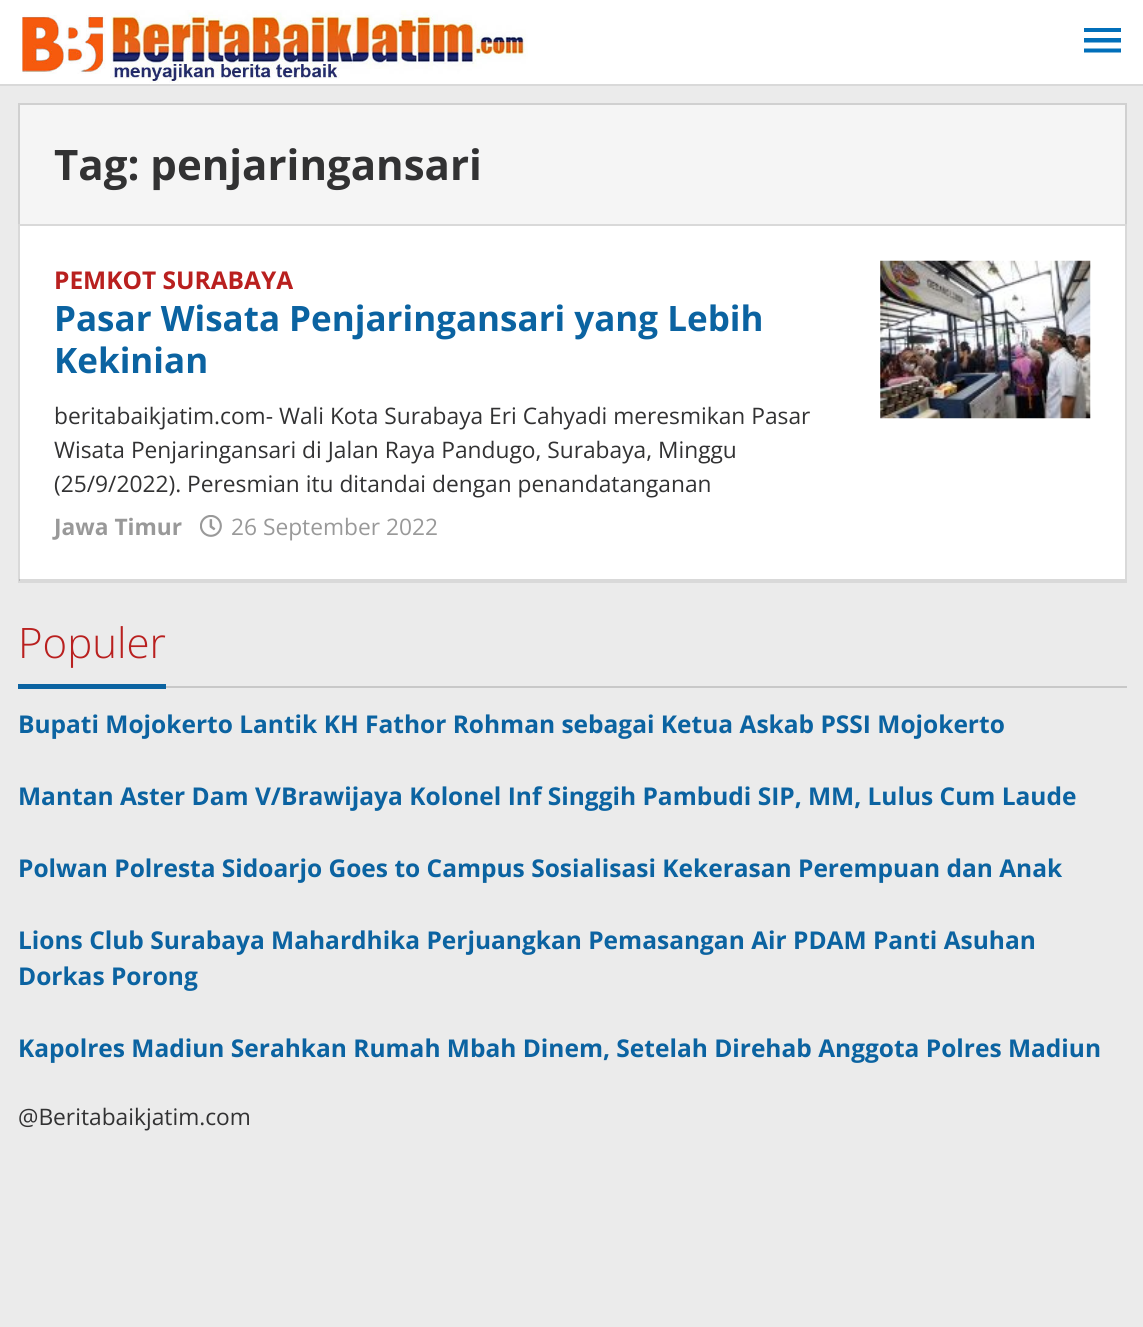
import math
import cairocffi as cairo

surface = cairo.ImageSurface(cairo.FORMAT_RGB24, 1143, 1327)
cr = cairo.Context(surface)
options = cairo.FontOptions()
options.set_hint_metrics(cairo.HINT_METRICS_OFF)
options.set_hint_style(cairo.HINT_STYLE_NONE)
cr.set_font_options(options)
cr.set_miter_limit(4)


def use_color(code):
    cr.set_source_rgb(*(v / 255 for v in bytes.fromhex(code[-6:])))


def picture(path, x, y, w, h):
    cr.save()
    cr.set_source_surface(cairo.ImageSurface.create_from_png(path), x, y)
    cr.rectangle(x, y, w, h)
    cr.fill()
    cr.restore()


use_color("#ebebeb")
cr.paint()
use_color("#ffffff")
cr.rectangle(0, 0, 1143, 84)
cr.fill()
use_color("#d9d9d9")
cr.rectangle(0, 84, 1143, 2)
cr.fill()
picture("img1.png", 22, 10, 506, 73)
use_color("#016fba")
cr.new_path()
cr.move_to(1084, 52.5)
cr.line_to(1121, 52.5)
cr.line_to(1121, 48.5)
cr.line_to(1084, 48.5)
cr.close_path()
cr.move_to(1084, 42.5)
cr.line_to(1121, 42.5)
cr.line_to(1121, 38)
cr.line_to(1084, 38)
cr.close_path()
cr.move_to(1084, 28)
cr.line_to(1084, 32)
cr.line_to(1121, 32)
cr.line_to(1121, 28)
cr.close_path()
cr.fill()
use_color("#f5f5f5")
cr.rectangle(19, 104, 1107, 121)
cr.fill_preserve()
use_color("#d0d0d0")
cr.stroke()
cr.select_font_face("Open Sans", cairo.FONT_SLANT_NORMAL, cairo.FONT_WEIGHT_BOLD)
cr.set_font_size(42)
use_color("#323233")
cr.move_to(54, 180)
cr.show_text("Tag: penjaringansari")
use_color("#ffffff")
cr.rectangle(19, 225, 1107, 357)
cr.fill_preserve()
use_color("#d9d9d9")
cr.stroke()
cr.set_source_rgba(0, 0, 0, 0.15)
cr.rectangle(19, 579, 1106, 2)
cr.fill()
cr.set_font_size(24.5)
use_color("#b9201f")
cr.move_to(54, 289)
cr.show_text("PEMKOT SURABAYA")
cr.set_font_size(35)
use_color("#0b63a1")
cr.move_to(54, 331)
cr.show_text("Pasar Wisata Penjaringansari yang Lebih")
cr.move_to(54, 373)
cr.show_text("Kekinian")
cr.select_font_face("Open Sans")
cr.set_font_size(22.75)
use_color("#323233")
cr.move_to(54, 424)
cr.show_text("beritabaikjatim.com- Wali Kota Surabaya Eri Cahyadi meresmikan Pasar")
cr.move_to(54, 458)
cr.show_text("Wisata Penjaringansari di Jalan Raya Pandugo, Surabaya, Minggu")
cr.move_to(54, 492)
cr.show_text("(25/9/2022). Peresmian itu ditandai dengan penandatanganan")
cr.select_font_face("Open Sans", cairo.FONT_SLANT_NORMAL, cairo.FONT_WEIGHT_BOLD)
use_color("#999999")
cr.move_to(54, 535)
cr.show_text("Jawa Timur")
picture("img2.png", 200, 515, 22, 22)
cr.select_font_face("Open Sans")
cr.move_to(231, 535)
cr.show_text("26 September 2022")
picture("img3.png", 880, 260, 211, 159)
use_color("#c8c8c8")
cr.rectangle(166, 686, 961, 2)
cr.fill()
use_color("#0b63a1")
cr.rectangle(18, 684, 148, 5)
cr.fill()
cr.select_font_face("Open Sans Light")
cr.set_font_size(42)
use_color("#b9201f")
cr.move_to(18, 658)
cr.show_text("Populer")
cr.select_font_face("Open Sans", cairo.FONT_SLANT_NORMAL, cairo.FONT_WEIGHT_BOLD)
cr.set_font_size(24.5)
use_color("#0b63a1")
cr.move_to(18, 733)
cr.show_text("Bupati Mojokerto Lantik KH Fathor Rohman sebagai Ketua Askab PSSI Mojokerto")
cr.move_to(18, 805)
cr.show_text("Mantan Aster Dam V/Brawijaya Kolonel Inf Singgih Pambudi SIP, MM, Lulus Cum Laude")
cr.move_to(18, 877)
cr.show_text("Polwan Polresta Sidoarjo Goes to Campus Sosialisasi Kekerasan Perempuan dan Anak")
cr.move_to(18, 949)
cr.show_text("Lions Club Surabaya Mahardhika Perjuangkan Pemasangan Air PDAM Panti Asuhan")
cr.move_to(18, 985)
cr.show_text("Dorkas Porong")
cr.move_to(18, 1057)
cr.show_text("Kapolres Madiun Serahkan Rumah Mbah Dinem, Setelah Direhab Anggota Polres Madiun")
cr.select_font_face("Open Sans")
cr.set_font_size(22.75)
use_color("#323233")
cr.move_to(18, 1125)
cr.show_text("@Beritabaikjatim.com")
surface.write_to_png("result.png")
